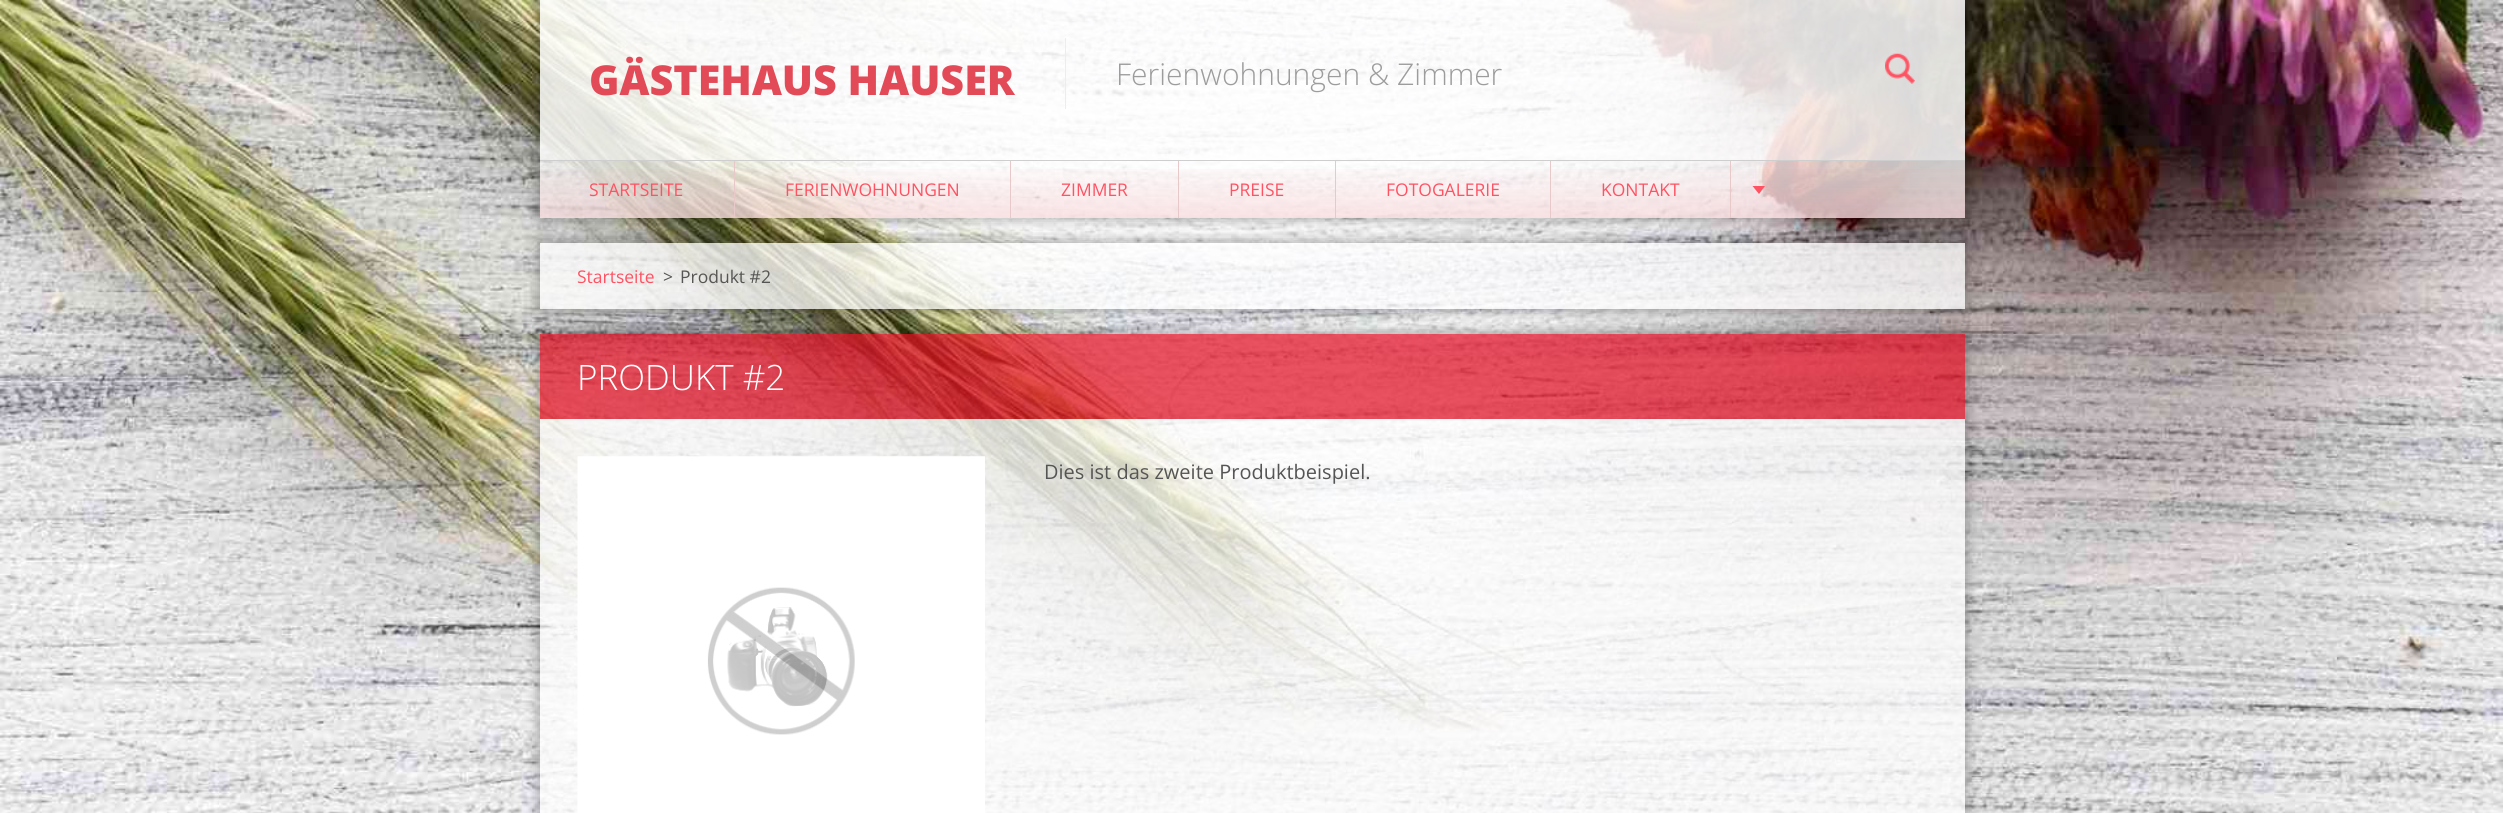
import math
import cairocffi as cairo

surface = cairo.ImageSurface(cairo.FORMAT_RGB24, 2503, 813)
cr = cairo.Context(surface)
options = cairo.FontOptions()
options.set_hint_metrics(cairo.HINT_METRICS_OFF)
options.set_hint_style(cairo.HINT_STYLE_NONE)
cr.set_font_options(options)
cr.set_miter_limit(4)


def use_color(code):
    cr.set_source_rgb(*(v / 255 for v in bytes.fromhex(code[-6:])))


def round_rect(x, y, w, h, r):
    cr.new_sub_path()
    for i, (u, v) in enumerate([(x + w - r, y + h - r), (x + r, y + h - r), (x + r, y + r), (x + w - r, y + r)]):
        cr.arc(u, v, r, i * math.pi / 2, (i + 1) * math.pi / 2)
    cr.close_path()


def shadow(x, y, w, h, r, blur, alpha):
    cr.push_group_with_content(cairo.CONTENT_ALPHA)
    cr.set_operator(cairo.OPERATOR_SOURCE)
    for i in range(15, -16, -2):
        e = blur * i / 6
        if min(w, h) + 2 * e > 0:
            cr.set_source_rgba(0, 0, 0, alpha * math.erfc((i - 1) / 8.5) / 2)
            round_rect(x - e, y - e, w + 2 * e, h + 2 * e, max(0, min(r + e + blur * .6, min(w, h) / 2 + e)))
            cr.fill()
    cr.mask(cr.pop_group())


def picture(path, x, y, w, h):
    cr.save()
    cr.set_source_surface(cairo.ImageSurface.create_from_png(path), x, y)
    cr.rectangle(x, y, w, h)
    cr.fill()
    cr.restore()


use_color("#ffffff")
cr.paint()
picture("img1.png", 0, 0, 2503, 813)
cr.save()
cr.set_fill_rule(cairo.FILL_RULE_EVEN_ODD)
cr.new_path()
cr.move_to(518, 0)
cr.line_to(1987, 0)
cr.line_to(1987, 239)
cr.line_to(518, 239)
cr.close_path()
cr.move_to(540, 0)
cr.line_to(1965, 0)
cr.line_to(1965, 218)
cr.line_to(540, 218)
cr.close_path()
cr.clip()
use_color("#000000")
shadow(536, -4, 1433, 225, 0, 5.5, 0.25)
cr.restore()
cr.set_source_rgba(1, 1, 1, 0.85)
cr.rectangle(540, 0, 1425, 160)
cr.fill()
cr.select_font_face("Open Sans ExtraBold")
cr.set_font_size(41.25)
use_color("#e34a58")
cr.move_to(589, 95)
cr.show_text("GÄSTEHAUS HAUSER")
use_color("#ededed")
cr.rectangle(1065, 38, 1, 71)
cr.fill()
cr.select_font_face("Open Sans Light")
cr.set_font_size(30)
use_color("#9c9c9c")
cr.move_to(1116, 85)
cr.show_text("Ferienwohnungen & Zimmer")
picture("img2.png", 1885, 53, 30, 31)
use_color("#cecece")
cr.rectangle(540, 160, 1425, 1)
cr.fill()
cr.set_source_rgba(1, 1, 1, 0.75)
cr.rectangle(540, 161, 1425, 57)
cr.fill()
gradient = cairo.LinearGradient(1253, 161, 1253, 218)
gradient.add_color_stop_rgba(0, 0.898, 0.302, 0.353, 0)
gradient.add_color_stop_rgba(1, 0.898, 0.302, 0.353, 0.15)
cr.set_source(gradient)
cr.rectangle(540, 169, 1425, 49)
cr.fill()
use_color("#e8c9c9")
cr.rectangle(734, 161, 1, 57)
cr.fill()
cr.select_font_face("Open Sans")
cr.set_font_size(17.5)
use_color("#ff5262")
cr.move_to(589, 196)
cr.show_text("STARTSEITE")
use_color("#e8c9c9")
cr.rectangle(1010, 161, 1, 57)
cr.fill()
use_color("#ff5262")
cr.move_to(785, 196)
cr.show_text("FERIENWOHNUNGEN")
use_color("#e8c9c9")
cr.rectangle(1178, 161, 1, 57)
cr.fill()
use_color("#ff5262")
cr.move_to(1061, 196)
cr.show_text("ZIMMER")
use_color("#e8c9c9")
cr.rectangle(1335, 161, 1, 57)
cr.fill()
use_color("#ff5262")
cr.move_to(1229, 196)
cr.show_text("PREISE")
use_color("#e8c9c9")
cr.rectangle(1550, 161, 1, 57)
cr.fill()
use_color("#ff5262")
cr.move_to(1386, 196)
cr.show_text("FOTOGALERIE")
use_color("#e8c9c9")
cr.rectangle(1730, 161, 1, 57)
cr.fill()
use_color("#ff5262")
cr.move_to(1601, 196)
cr.show_text("KONTAKT")
cr.new_path()
cr.move_to(1752.5, 186)
cr.line_to(1765, 186)
cr.line_to(1759, 194)
cr.close_path()
cr.fill()
cr.save()
cr.set_fill_rule(cairo.FILL_RULE_EVEN_ODD)
cr.new_path()
cr.move_to(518, 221)
cr.line_to(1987, 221)
cr.line_to(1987, 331)
cr.line_to(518, 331)
cr.close_path()
cr.move_to(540, 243)
cr.line_to(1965, 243)
cr.line_to(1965, 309)
cr.line_to(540, 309)
cr.close_path()
cr.clip()
use_color("#000000")
shadow(536, 239, 1433, 74, 0, 5.5, 0.25)
cr.restore()
cr.set_source_rgba(1, 1, 1, 0.75)
cr.rectangle(540, 243, 1425, 66)
cr.fill()
use_color("#ff5262")
cr.move_to(577, 283)
cr.show_text("Startseite")
use_color("#555555")
cr.move_to(663, 283)
cr.show_text(">")
cr.move_to(680, 283)
cr.show_text("Produkt #2")
cr.save()
cr.set_fill_rule(cairo.FILL_RULE_EVEN_ODD)
cr.new_path()
cr.move_to(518, 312)
cr.line_to(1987, 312)
cr.line_to(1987, 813)
cr.line_to(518, 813)
cr.close_path()
cr.move_to(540, 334)
cr.line_to(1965, 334)
cr.line_to(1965, 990)
cr.line_to(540, 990)
cr.close_path()
cr.clip()
use_color("#000000")
shadow(536, 330, 1433, 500, 0, 5.5, 0.25)
cr.restore()
cr.set_source_rgba(0.894, 0.055, 0.133, 0.71)
cr.rectangle(540, 334, 1425, 85)
cr.fill()
cr.select_font_face("Open Sans Light")
cr.set_font_size(35)
use_color("#ffffff")
cr.move_to(577, 390)
cr.show_text("PRODUKT #2")
cr.set_source_rgba(1, 1, 1, 0.75)
cr.rectangle(540, 419, 1425, 394)
cr.fill()
picture("img3.png", 577, 456, 408, 357)
cr.select_font_face("Open Sans")
cr.set_font_size(20)
use_color("#555555")
cr.move_to(1044, 479)
cr.show_text("Dies ist das zweite Produktbeispiel.")
surface.write_to_png("result.png")
